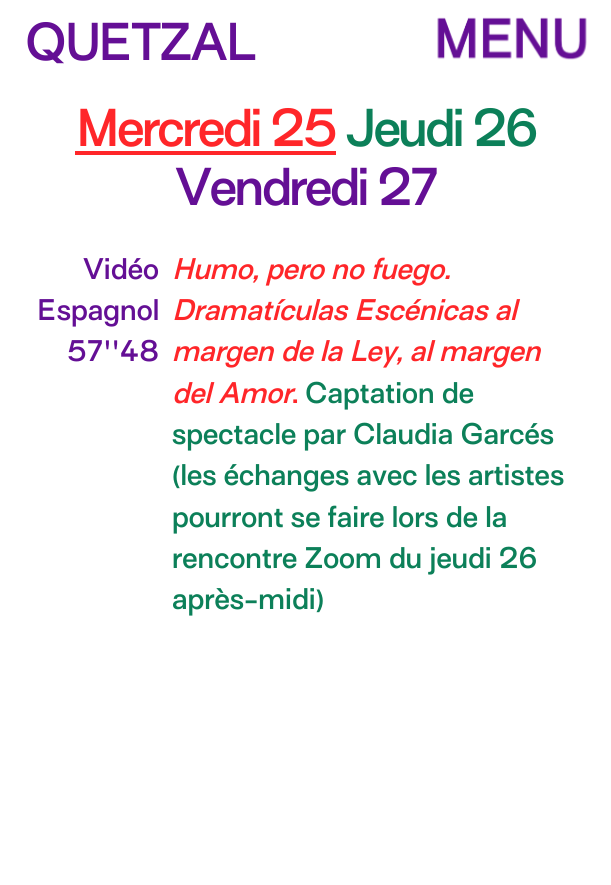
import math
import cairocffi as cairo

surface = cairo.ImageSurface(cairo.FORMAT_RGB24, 611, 885)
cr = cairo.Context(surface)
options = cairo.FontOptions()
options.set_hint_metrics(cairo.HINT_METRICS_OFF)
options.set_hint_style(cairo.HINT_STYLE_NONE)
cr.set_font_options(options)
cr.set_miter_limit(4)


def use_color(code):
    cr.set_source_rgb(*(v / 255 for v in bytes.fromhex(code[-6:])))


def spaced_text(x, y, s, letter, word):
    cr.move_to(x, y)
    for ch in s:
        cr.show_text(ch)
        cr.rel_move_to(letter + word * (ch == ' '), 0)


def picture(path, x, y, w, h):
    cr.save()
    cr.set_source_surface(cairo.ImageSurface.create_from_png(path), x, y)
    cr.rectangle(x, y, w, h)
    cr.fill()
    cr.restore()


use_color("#ffffff")
cr.paint()
cr.select_font_face("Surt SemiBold")
cr.set_font_size(49)
use_color("#640f95")
spaced_text(25, 60, "QUETZAL", -2.5, 0)
picture("img1.png", 437, 17, 150, 43)
use_color("#ff2629")
spaced_text(76, 146, "Mercredi 25", -2.5, 0)
cr.rectangle(75, 151, 261, 4)
cr.fill()
use_color("#0c8059")
spaced_text(346, 146, "Jeudi 26", -2.5, 0)
use_color("#640f95")
spaced_text(175, 205, "Vendredi 27", -2.5, 0)
cr.set_font_size(27.5)
cr.move_to(83, 279)
cr.show_text("Vidéo")
cr.move_to(37, 320)
cr.show_text("Espagnol")
cr.move_to(67, 361)
cr.show_text("57''48")
cr.select_font_face("Surt SemiBold", cairo.FONT_SLANT_ITALIC)
use_color("#ff2629")
cr.move_to(172, 279)
cr.show_text("Humo, pero no fuego.")
cr.move_to(172, 320)
cr.show_text("Dramatículas Escénicas al")
cr.move_to(172, 361)
cr.show_text("margen de la Ley, al margen")
cr.move_to(172, 403)
cr.show_text("del Amor")
cr.select_font_face("Surt SemiBold")
use_color("#0c8059")
cr.move_to(305, 403)
cr.show_text("Captation de")
use_color("#ff2629")
cr.move_to(292, 403)
cr.show_text(".")
use_color("#0c8059")
cr.move_to(172, 444)
cr.show_text("spectacle par Claudia Garcés")
cr.move_to(172, 485)
cr.show_text("(les échanges avec les artistes")
cr.move_to(172, 527)
cr.show_text("pourront se faire lors de la")
cr.move_to(172, 568)
cr.show_text("rencontre Zoom du jeudi 26")
cr.move_to(172, 609)
cr.show_text("après-midi)")
surface.write_to_png("result.png")
